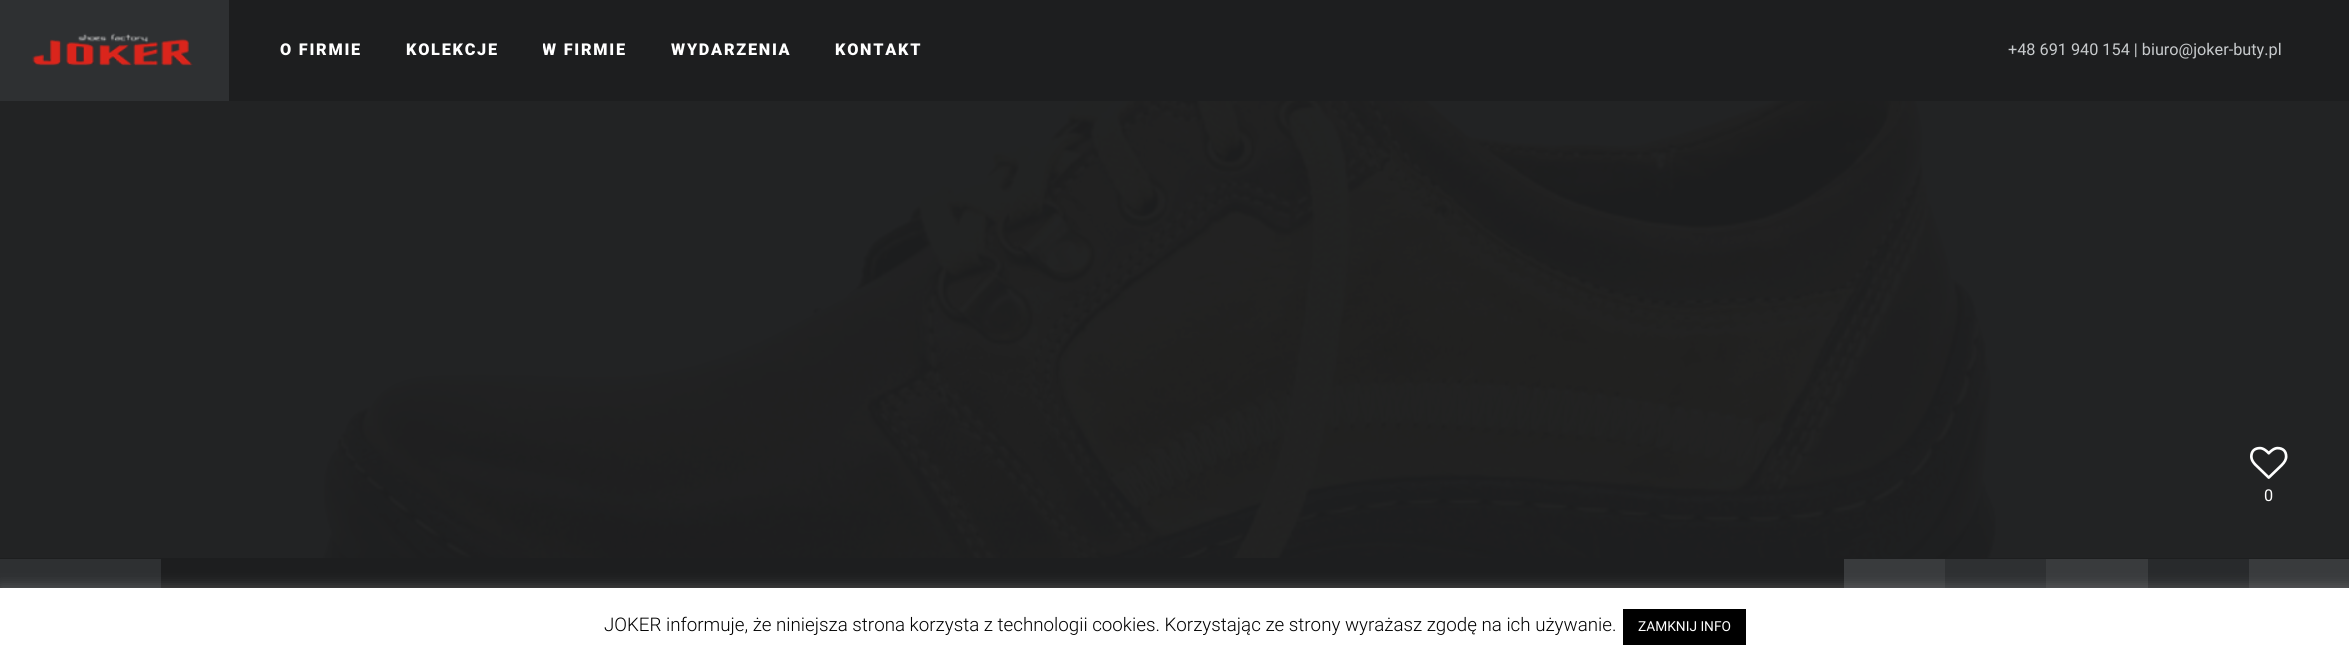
import math
import cairocffi as cairo

surface = cairo.ImageSurface(cairo.FORMAT_RGB24, 2349, 660)
cr = cairo.Context(surface)
options = cairo.FontOptions()
options.set_hint_metrics(cairo.HINT_METRICS_OFF)
options.set_hint_style(cairo.HINT_STYLE_NONE)
cr.set_font_options(options)
cr.set_miter_limit(4)


def use_color(code):
    cr.set_source_rgb(*(v / 255 for v in bytes.fromhex(code[-6:])))


def spaced_text(x, y, s, letter, word):
    cr.move_to(x, y)
    for ch in s:
        cr.show_text(ch)
        cr.rel_move_to(letter + word * (ch == ' '), 0)


def round_rect(x, y, w, h, r):
    cr.new_sub_path()
    for i, (u, v) in enumerate([(x + w - r, y + h - r), (x + r, y + h - r), (x + r, y + r), (x + w - r, y + r)]):
        cr.arc(u, v, r, i * math.pi / 2, (i + 1) * math.pi / 2)
    cr.close_path()


def shadow(x, y, w, h, r, blur, alpha):
    cr.push_group_with_content(cairo.CONTENT_ALPHA)
    cr.set_operator(cairo.OPERATOR_SOURCE)
    for i in range(15, -16, -2):
        e = blur * i / 6
        if min(w, h) + 2 * e > 0:
            cr.set_source_rgba(0, 0, 0, alpha * math.erfc((i - 1) / 8.5) / 2)
            round_rect(x - e, y - e, w + 2 * e, h + 2 * e, max(0, min(r + e + blur * .6, min(w, h) / 2 + e)))
            cr.fill()
    cr.mask(cr.pop_group())


def picture(path, x, y, w, h):
    cr.save()
    cr.set_source_surface(cairo.ImageSurface.create_from_png(path), x, y)
    cr.rectangle(x, y, w, h)
    cr.fill()
    cr.restore()


use_color("#1d1e1f")
cr.paint()
use_color("#2e3032")
cr.rectangle(0, 0, 229, 101)
cr.fill()
picture("img1.png", 32, 33, 161, 33)
cr.select_font_face("Roboto Black")
cr.set_font_size(16.25)
use_color("#ffffff")
spaced_text(280, 55, "O FIRMIE", 1.75, 0)
spaced_text(406, 55, "KOLEKCJE", 1.75, 0)
cr.save()
cr.rectangle(543, 0, 85, 101)
cr.clip()
spaced_text(542, 55, "W FIRMIE", 1.75, 0)
cr.restore()
spaced_text(671, 55, "WYDARZENIA", 1.75, 0)
spaced_text(835, 55, "KONTAKT", 1.75, 0)
cr.select_font_face("Roboto")
use_color("#c7cacc")
cr.move_to(2008, 55)
cr.show_text("+48 691 940 154 | biuro@joker-buty.pl")
picture("img2.png", 0, 101, 2349, 457)
picture("img3.png", 2250, 446, 38, 33)
use_color("#ffffff")
cr.move_to(2264, 501)
cr.show_text("0")
use_color("#2e3032")
cr.rectangle(0, 559, 161, 29)
cr.fill()
use_color("#393b3d")
cr.rectangle(1844, 559, 101, 29)
cr.fill()
use_color("#2e3032")
cr.rectangle(1945, 559, 101, 29)
cr.fill()
use_color("#393b3d")
cr.rectangle(2046, 559, 102, 29)
cr.fill()
cr.rectangle(2249, 559, 100, 29)
cr.fill()
use_color("#282a2c")
cr.rectangle(2148, 559, 101, 29)
cr.fill()
use_color("#acabab")
shadow(0, 586, 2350, 73, 0, 6, 0.3)
use_color("#ffffff")
cr.rectangle(0, 588, 2349, 72)
cr.fill()
cr.select_font_face("Roboto Light")
cr.set_font_size(18.75)
use_color("#000000")
cr.move_to(604, 631)
cr.show_text("JOKER informuje, że niniejsza strona korzysta z technologii cookies. Korzystając ze strony wyrażasz zgodę na ich używanie.")
cr.rectangle(1623, 609, 123, 36)
cr.fill()
cr.select_font_face("Roboto")
cr.set_font_size(13.75)
use_color("#ffffff")
cr.move_to(1638, 631)
cr.show_text("ZAMKNIJ INFO")
surface.write_to_png("result.png")
